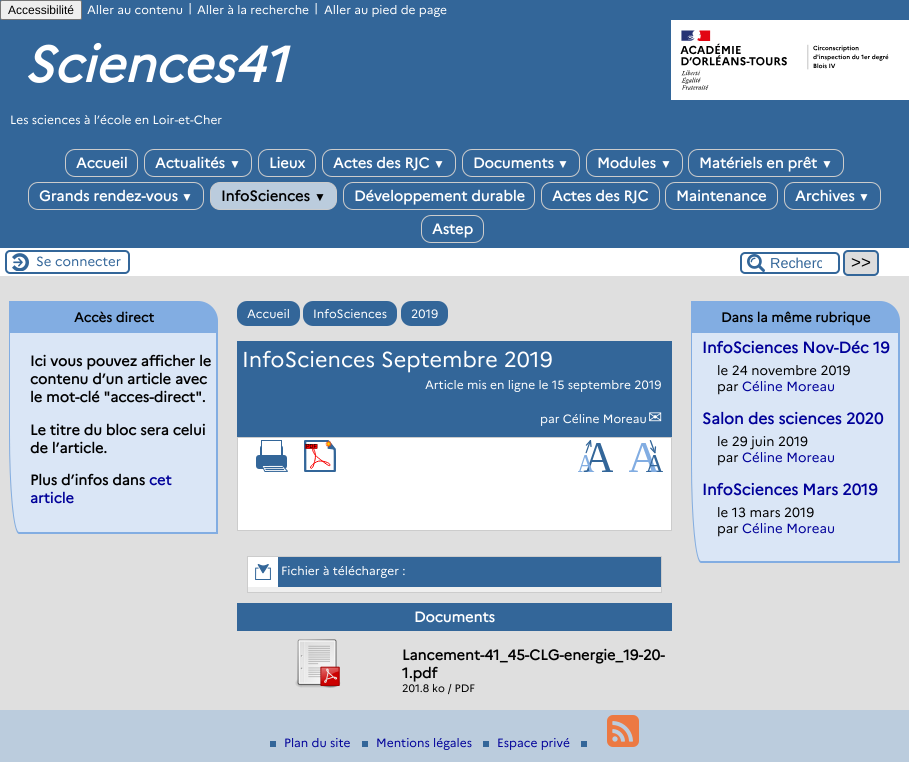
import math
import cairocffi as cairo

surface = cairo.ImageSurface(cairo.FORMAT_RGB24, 909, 762)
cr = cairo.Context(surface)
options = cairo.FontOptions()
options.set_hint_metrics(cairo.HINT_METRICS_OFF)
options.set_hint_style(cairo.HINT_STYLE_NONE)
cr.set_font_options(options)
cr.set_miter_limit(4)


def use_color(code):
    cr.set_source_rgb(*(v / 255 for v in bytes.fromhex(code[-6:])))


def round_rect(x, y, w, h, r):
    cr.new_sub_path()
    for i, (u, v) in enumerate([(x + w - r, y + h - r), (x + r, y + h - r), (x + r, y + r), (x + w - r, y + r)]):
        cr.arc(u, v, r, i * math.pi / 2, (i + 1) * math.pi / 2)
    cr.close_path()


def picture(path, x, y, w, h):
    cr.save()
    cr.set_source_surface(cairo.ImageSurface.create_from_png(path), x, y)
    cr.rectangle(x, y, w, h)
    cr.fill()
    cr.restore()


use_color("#dfdfdf")
cr.paint()
use_color("#ffffff")
cr.rectangle(0, 248, 909, 28)
cr.fill()
use_color("#336699")
cr.rectangle(0, 0, 909, 248)
cr.fill()
use_color("#efefef")
round_rect(0.5, 0.5, 81, 19, 1.5)
cr.fill_preserve()
use_color("#767676")
cr.set_line_width(1)
cr.stroke()
cr.select_font_face("Liberation Sans")
cr.set_font_size(12)
use_color("#000000")
cr.move_to(8, 14)
cr.show_text("Accessibilité")
cr.select_font_face("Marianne")
use_color("#ffffff")
cr.move_to(87, 14)
cr.show_text("Aller au contenu")
cr.move_to(188, 12)
cr.show_text("|")
cr.move_to(197, 14)
cr.show_text("Aller à la recherche")
cr.move_to(314, 12)
cr.show_text("|")
cr.move_to(324, 14)
cr.show_text("Aller au pied de page")
cr.select_font_face("Marianne", cairo.FONT_SLANT_ITALIC, cairo.FONT_WEIGHT_BOLD)
cr.set_font_size(50)
cr.move_to(24, 82)
cr.show_text("Sciences41")
cr.select_font_face("Marianne")
cr.set_font_size(12)
cr.move_to(10, 124)
cr.show_text("Les sciences à l’école en Loir-et-Cher")
picture("img1.png", 671, 20, 238, 80)
round_rect(65.5, 149.5, 72, 27, 9.5)
use_color("#cccccc")
cr.stroke()
cr.select_font_face("Marianne", cairo.FONT_SLANT_NORMAL, cairo.FONT_WEIGHT_BOLD)
cr.set_font_size(14.4)
use_color("#ffffff")
cr.move_to(76, 168)
cr.show_text("Accueil")
round_rect(144.5, 149.5, 107, 27, 9.5)
use_color("#cccccc")
cr.stroke()
use_color("#ffffff")
cr.move_to(155, 168)
cr.show_text("Actualités")
cr.select_font_face("Liberation Serif", cairo.FONT_SLANT_NORMAL, cairo.FONT_WEIGHT_BOLD)
cr.set_font_size(12)
cr.move_to(229, 168)
cr.show_text("▼")
round_rect(258.5, 149.5, 57, 27, 9.5)
use_color("#cccccc")
cr.stroke()
cr.select_font_face("Marianne", cairo.FONT_SLANT_NORMAL, cairo.FONT_WEIGHT_BOLD)
cr.set_font_size(14.4)
use_color("#ffffff")
cr.move_to(269, 168)
cr.show_text("Lieux")
round_rect(322.5, 149.5, 133, 27, 9.5)
use_color("#cccccc")
cr.stroke()
use_color("#ffffff")
cr.move_to(333, 168)
cr.show_text("Actes des RJC")
cr.select_font_face("Liberation Serif", cairo.FONT_SLANT_NORMAL, cairo.FONT_WEIGHT_BOLD)
cr.set_font_size(12)
cr.move_to(433, 168)
cr.show_text("▼")
round_rect(462.5, 149.5, 117, 27, 9.5)
use_color("#cccccc")
cr.stroke()
cr.select_font_face("Marianne", cairo.FONT_SLANT_NORMAL, cairo.FONT_WEIGHT_BOLD)
cr.set_font_size(14.4)
use_color("#ffffff")
cr.move_to(473, 168)
cr.show_text("Documents")
cr.select_font_face("Liberation Serif", cairo.FONT_SLANT_NORMAL, cairo.FONT_WEIGHT_BOLD)
cr.set_font_size(12)
cr.move_to(557, 168)
cr.show_text("▼")
round_rect(586.5, 149.5, 96, 27, 9.5)
use_color("#cccccc")
cr.stroke()
cr.select_font_face("Marianne", cairo.FONT_SLANT_NORMAL, cairo.FONT_WEIGHT_BOLD)
cr.set_font_size(14.4)
use_color("#ffffff")
cr.move_to(597, 168)
cr.show_text("Modules")
cr.select_font_face("Liberation Serif", cairo.FONT_SLANT_NORMAL, cairo.FONT_WEIGHT_BOLD)
cr.set_font_size(12)
cr.move_to(660, 168)
cr.show_text("▼")
round_rect(688.5, 149.5, 155, 27, 9.5)
use_color("#cccccc")
cr.stroke()
cr.select_font_face("Marianne", cairo.FONT_SLANT_NORMAL, cairo.FONT_WEIGHT_BOLD)
cr.set_font_size(14.4)
use_color("#ffffff")
cr.move_to(699, 168)
cr.show_text("Matériels en prêt")
cr.select_font_face("Liberation Serif", cairo.FONT_SLANT_NORMAL, cairo.FONT_WEIGHT_BOLD)
cr.set_font_size(12)
cr.move_to(821, 168)
cr.show_text("▼")
round_rect(28.5, 182.5, 175, 27, 9.5)
use_color("#cccccc")
cr.stroke()
cr.select_font_face("Marianne", cairo.FONT_SLANT_NORMAL, cairo.FONT_WEIGHT_BOLD)
cr.set_font_size(14.4)
use_color("#ffffff")
cr.move_to(39, 201)
cr.show_text("Grands rendez-vous")
cr.select_font_face("Liberation Serif", cairo.FONT_SLANT_NORMAL, cairo.FONT_WEIGHT_BOLD)
cr.set_font_size(12)
cr.move_to(181, 201)
cr.show_text("▼")
use_color("#bbccdd")
round_rect(210.5, 182.5, 126, 27, 9.5)
cr.fill_preserve()
use_color("#cccccc")
cr.stroke()
cr.select_font_face("Marianne", cairo.FONT_SLANT_NORMAL, cairo.FONT_WEIGHT_BOLD)
cr.set_font_size(14.4)
use_color("#000000")
cr.move_to(221, 201)
cr.show_text("InfoSciences")
cr.select_font_face("Liberation Serif", cairo.FONT_SLANT_NORMAL, cairo.FONT_WEIGHT_BOLD)
cr.set_font_size(12)
cr.move_to(314, 201)
cr.show_text("▼")
round_rect(343.5, 182.5, 191, 27, 9.5)
use_color("#cccccc")
cr.stroke()
cr.select_font_face("Marianne", cairo.FONT_SLANT_NORMAL, cairo.FONT_WEIGHT_BOLD)
cr.set_font_size(14.4)
use_color("#ffffff")
cr.move_to(354, 201)
cr.show_text("Développement durable")
round_rect(541.5, 182.5, 118, 27, 9.5)
use_color("#cccccc")
cr.stroke()
use_color("#ffffff")
cr.move_to(552, 201)
cr.show_text("Actes des RJC")
round_rect(665.5, 182.5, 112, 27, 9.5)
use_color("#cccccc")
cr.stroke()
use_color("#ffffff")
cr.move_to(676, 201)
cr.show_text("Maintenance")
round_rect(784.5, 182.5, 96, 27, 9.5)
use_color("#cccccc")
cr.stroke()
use_color("#ffffff")
cr.move_to(795, 201)
cr.show_text("Archives")
cr.select_font_face("Liberation Serif", cairo.FONT_SLANT_NORMAL, cairo.FONT_WEIGHT_BOLD)
cr.set_font_size(12)
cr.move_to(858, 201)
cr.show_text("▼")
round_rect(421.5, 215.5, 62, 27, 9.5)
use_color("#cccccc")
cr.stroke()
cr.select_font_face("Marianne", cairo.FONT_SLANT_NORMAL, cairo.FONT_WEIGHT_BOLD)
cr.set_font_size(14.4)
use_color("#ffffff")
cr.move_to(432, 234)
cr.show_text("Astep")
picture("img2.png", 12, 253, 17, 18)
round_rect(6, 251, 123, 22, 4)
use_color("#336699")
cr.set_line_width(2)
cr.stroke()
cr.select_font_face("Marianne")
cr.set_font_size(13.25)
cr.move_to(36, 266)
cr.show_text("Se connecter")
picture("img3.png", 747, 254, 18, 18)
round_rect(741, 253, 98, 20, 4)
cr.stroke()
cr.save()
cr.rectangle(770, 255, 52, 16)
cr.clip()
cr.select_font_face("Liberation Sans")
cr.set_font_size(14.4)
cr.move_to(770, 268)
cr.show_text("Recherc")
cr.restore()
use_color("#dddddd")
round_rect(844, 251, 34, 24, 4)
cr.fill_preserve()
use_color("#336699")
cr.stroke()
cr.select_font_face("Liberation Sans")
cr.set_font_size(17)
use_color("#000000")
cr.move_to(851, 268)
cr.show_text(">>")
use_color("#336699")
round_rect(237, 301, 63, 25, 10)
cr.fill()
cr.select_font_face("Marianne")
cr.set_font_size(12)
use_color("#ffffff")
cr.move_to(247, 318)
cr.show_text("Accueil")
use_color("#336699")
round_rect(303, 301, 94, 25, 10)
cr.fill()
use_color("#ffffff")
cr.move_to(313, 318)
cr.show_text("InfoSciences")
use_color("#336699")
round_rect(401, 301, 47, 25, 10)
cr.fill()
use_color("#ffffff")
cr.move_to(411, 318)
cr.show_text("2019")
use_color("#336699")
cr.rectangle(237, 341, 435, 96)
cr.fill()
cr.set_font_size(21.6)
use_color("#ffffff")
cr.move_to(242, 367)
cr.show_text("InfoSciences Septembre 2019")
cr.set_font_size(12)
cr.move_to(425, 389)
cr.show_text("Article mis en ligne le 15 septembre 2019")
cr.move_to(540, 423)
cr.show_text("par Céline Moreau")
cr.select_font_face("DejaVu Sans")
cr.set_font_size(17)
cr.move_to(648, 423)
cr.show_text("✉")
cr.rectangle(237.5, 437.5, 434, 93)
cr.fill_preserve()
use_color("#cccccc")
cr.set_line_width(1)
cr.stroke()
picture("img4.png", 256, 440, 32, 32)
picture("img5.png", 304, 440, 32, 32)
picture("img6.png", 578, 440, 35, 32)
picture("img7.png", 629, 440, 34, 32)
use_color("#efefef")
cr.rectangle(248, 587, 413, 5)
cr.fill()
cr.rectangle(247.5, 556.5, 414, 36)
use_color("#cccccc")
cr.stroke()
use_color("#336699")
cr.rectangle(278, 557, 383, 30)
cr.fill()
use_color("#ffffff")
cr.rectangle(248, 557, 30, 30)
cr.fill()
picture("img8.png", 255, 564, 16, 16)
cr.select_font_face("Marianne")
cr.set_font_size(12)
cr.move_to(281, 575)
cr.show_text("Fichier à télécharger :")
use_color("#336699")
cr.rectangle(237, 603, 435, 28)
cr.fill()
cr.select_font_face("Marianne", cairo.FONT_SLANT_NORMAL, cairo.FONT_WEIGHT_BOLD)
cr.set_font_size(14.4)
use_color("#ffffff")
cr.move_to(414, 622)
cr.show_text("Documents")
picture("img9.png", 295, 639, 46, 49)
use_color("#000000")
cr.move_to(402, 660)
cr.show_text("Lancement-41_45-CLG-energie_19-20-")
cr.move_to(402, 678)
cr.show_text("1.pdf")
cr.select_font_face("Marianne")
cr.set_font_size(10.75)
cr.move_to(402, 692)
cr.show_text("201.8 ko / PDF")
use_color("#82ade2")
cr.new_path()
cr.move_to(9, 301)
cr.line_to(198, 301)
cr.curve_to(209, 301, 218, 310, 218, 321)
cr.line_to(218, 333)
cr.line_to(9, 333)
cr.close_path()
cr.fill()
cr.select_font_face("Marianne", cairo.FONT_SLANT_NORMAL, cairo.FONT_WEIGHT_BOLD)
cr.set_font_size(13.25)
use_color("#000000")
cr.move_to(74, 322)
cr.show_text("Accès direct")
use_color("#dae6f6")
cr.new_path()
cr.move_to(10, 333)
cr.line_to(216, 333)
cr.line_to(216, 532)
cr.line_to(19, 532)
cr.curve_to(14, 532, 10, 488, 10, 434)
cr.close_path()
cr.fill()
use_color("#82ade2")
cr.set_fill_rule(cairo.FILL_RULE_EVEN_ODD)
cr.new_path()
cr.move_to(9, 333)
cr.line_to(218, 333)
cr.line_to(218, 534)
cr.line_to(19, 534)
cr.curve_to(13, 534, 9, 489, 9, 434)
cr.close_path()
cr.move_to(10, 333)
cr.line_to(216, 333)
cr.line_to(216, 532)
cr.line_to(19, 532)
cr.curve_to(14, 532, 10, 488, 10, 434)
cr.close_path()
cr.fill()
cr.set_font_size(14.4)
use_color("#000000")
cr.move_to(30, 366)
cr.show_text("Ici vous pouvez afficher le")
cr.move_to(30, 384)
cr.show_text("contenu d’un article avec")
cr.move_to(30, 402)
cr.show_text("le mot-clé \"acces-direct\".")
cr.move_to(30, 435)
cr.show_text("Le titre du bloc sera celui")
cr.move_to(30, 453)
cr.show_text("de l’article.")
cr.move_to(30, 485)
cr.show_text("Plus d’infos dans")
use_color("#000099")
cr.move_to(149, 485)
cr.show_text("cet")
cr.move_to(30, 503)
cr.show_text("article")
use_color("#82ade2")
cr.new_path()
cr.move_to(691, 301)
cr.line_to(880, 301)
cr.curve_to(891, 301, 900, 310, 900, 321)
cr.line_to(900, 333)
cr.line_to(691, 333)
cr.close_path()
cr.fill()
cr.set_font_size(13.25)
use_color("#000000")
cr.move_to(721, 322)
cr.show_text("Dans la même rubrique")
use_color("#dae6f6")
cr.set_fill_rule(cairo.FILL_RULE_WINDING)
cr.new_path()
cr.move_to(692, 333)
cr.line_to(898, 333)
cr.line_to(898, 561)
cr.line_to(701, 561)
cr.curve_to(696, 561, 692, 517, 692, 463)
cr.close_path()
cr.fill()
use_color("#82ade2")
cr.set_fill_rule(cairo.FILL_RULE_EVEN_ODD)
cr.new_path()
cr.move_to(691, 333)
cr.line_to(900, 333)
cr.line_to(900, 563)
cr.line_to(701, 563)
cr.curve_to(695, 563, 691, 518, 691, 463)
cr.close_path()
cr.move_to(692, 333)
cr.line_to(898, 333)
cr.line_to(898, 561)
cr.line_to(701, 561)
cr.curve_to(696, 561, 692, 517, 692, 463)
cr.close_path()
cr.fill()
cr.set_font_size(15.6)
use_color("#000099")
cr.move_to(702, 353)
cr.show_text("InfoSciences Nov-Déc 19")
cr.select_font_face("Marianne")
cr.set_font_size(13.25)
use_color("#000000")
cr.move_to(717, 375)
cr.show_text("le 24 novembre 2019")
cr.move_to(717, 391)
cr.show_text("par")
use_color("#000099")
cr.move_to(742, 391)
cr.show_text("Céline Moreau")
cr.select_font_face("Marianne", cairo.FONT_SLANT_NORMAL, cairo.FONT_WEIGHT_BOLD)
cr.set_font_size(15.6)
cr.move_to(702, 424)
cr.show_text("Salon des sciences 2020")
cr.select_font_face("Marianne")
cr.set_font_size(13.25)
use_color("#000000")
cr.move_to(717, 446)
cr.show_text("le 29 juin 2019")
cr.move_to(717, 462)
cr.show_text("par")
use_color("#000099")
cr.move_to(742, 462)
cr.show_text("Céline Moreau")
cr.select_font_face("Marianne", cairo.FONT_SLANT_NORMAL, cairo.FONT_WEIGHT_BOLD)
cr.set_font_size(15.6)
cr.move_to(702, 495)
cr.show_text("InfoSciences Mars 2019")
cr.select_font_face("Marianne")
cr.set_font_size(13.25)
use_color("#000000")
cr.move_to(717, 517)
cr.show_text("le 13 mars 2019")
cr.move_to(717, 533)
cr.show_text("par")
use_color("#000099")
cr.move_to(742, 533)
cr.show_text("Céline Moreau")
use_color("#bbccdd")
cr.rectangle(0, 710, 909, 52)
cr.fill()
cr.set_font_size(12)
use_color("#000099")
cr.move_to(284, 747)
cr.show_text("Plan du site")
use_color("#336699")
cr.rectangle(270, 741, 6, 6)
cr.fill()
use_color("#000099")
cr.move_to(376, 747)
cr.show_text("Mentions légales")
use_color("#336699")
cr.rectangle(362, 741, 6, 6)
cr.fill()
use_color("#000099")
cr.move_to(497, 747)
cr.show_text("Espace privé")
use_color("#336699")
cr.rectangle(483, 741, 6, 6)
cr.fill()
cr.rectangle(581, 741, 6, 6)
cr.fill()
picture("img10.png", 607, 715, 32, 32)
surface.write_to_png("result.png")
